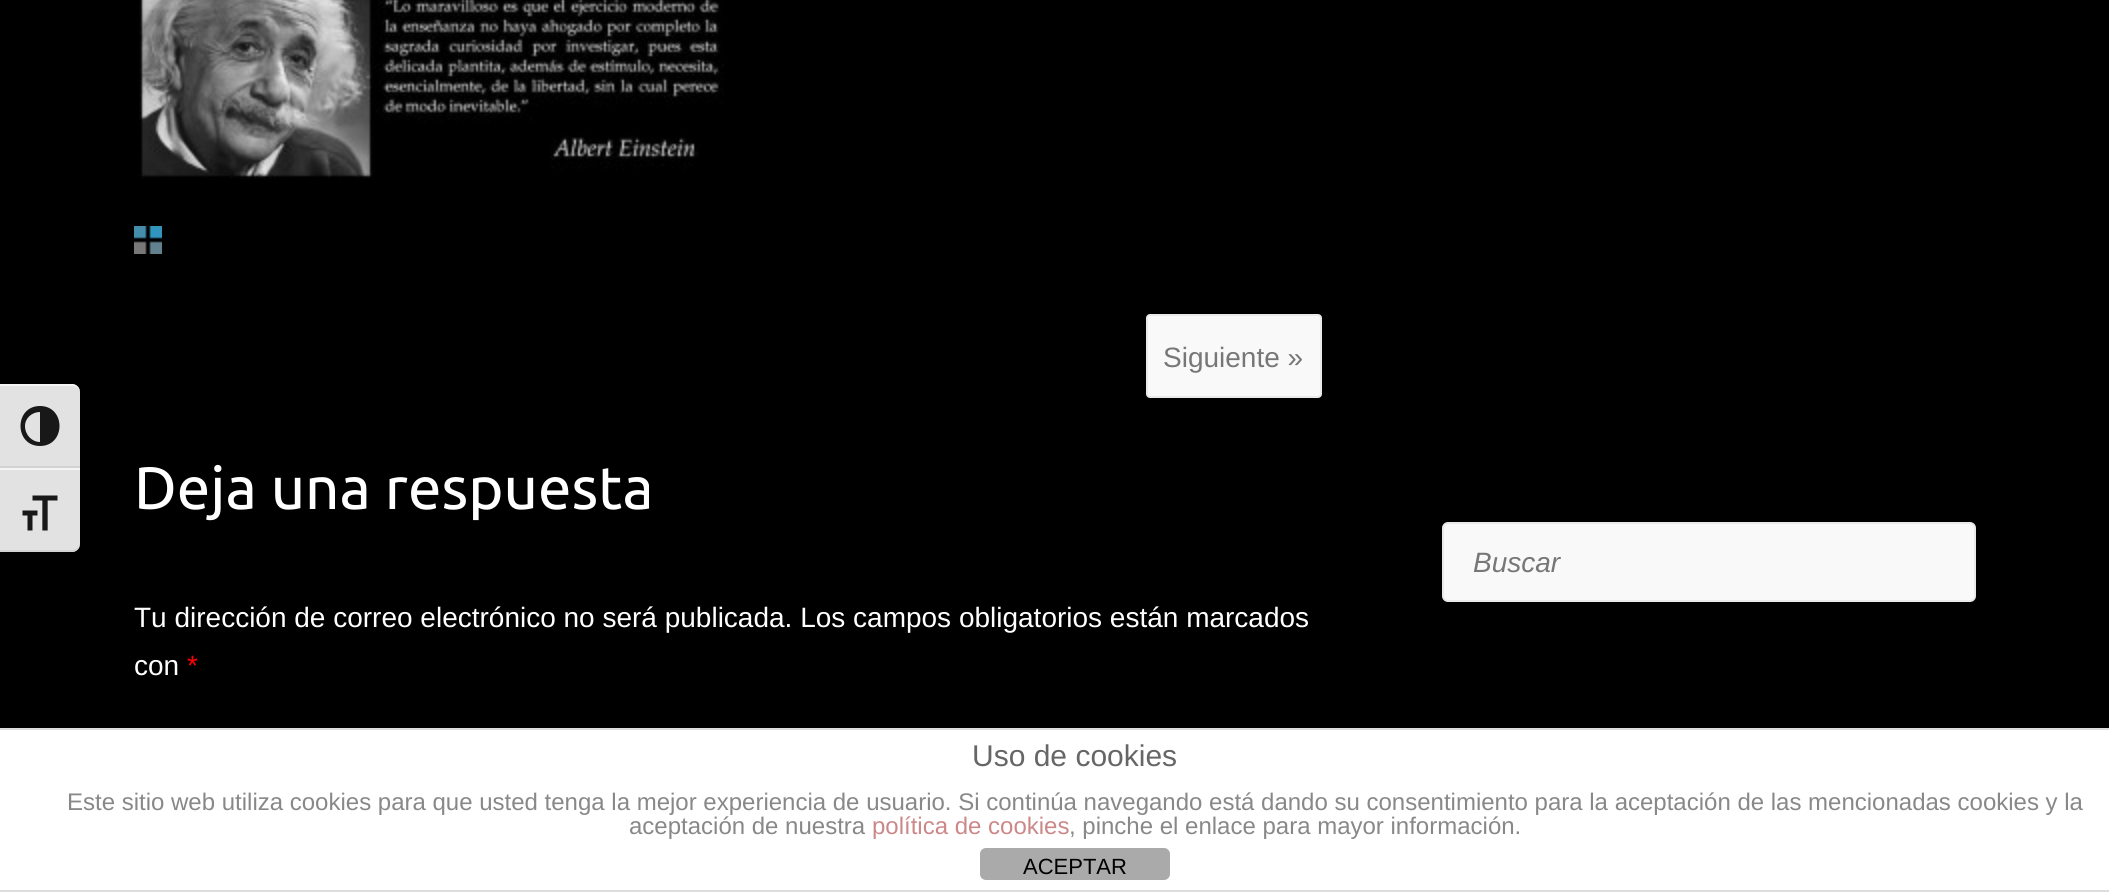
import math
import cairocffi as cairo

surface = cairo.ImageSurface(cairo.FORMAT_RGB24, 2109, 892)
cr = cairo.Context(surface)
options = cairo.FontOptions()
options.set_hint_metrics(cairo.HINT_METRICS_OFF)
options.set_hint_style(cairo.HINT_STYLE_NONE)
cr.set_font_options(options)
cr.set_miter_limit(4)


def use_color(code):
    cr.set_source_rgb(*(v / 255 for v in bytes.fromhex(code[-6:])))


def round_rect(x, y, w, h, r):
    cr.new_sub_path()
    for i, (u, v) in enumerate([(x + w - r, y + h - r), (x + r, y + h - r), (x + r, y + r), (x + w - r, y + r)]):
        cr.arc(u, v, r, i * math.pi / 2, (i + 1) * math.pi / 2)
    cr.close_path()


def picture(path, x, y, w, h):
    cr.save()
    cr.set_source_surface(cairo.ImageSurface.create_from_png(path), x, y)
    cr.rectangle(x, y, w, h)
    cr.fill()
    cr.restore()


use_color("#000000")
cr.paint()
use_color("#e2e2e2")
cr.new_path()
cr.move_to(0, 384)
cr.line_to(72, 384)
cr.curve_to(76.5, 384, 80, 387.5, 80, 392)
cr.line_to(80, 468)
cr.line_to(0, 468)
cr.close_path()
cr.fill()
use_color("#f5f5f5")
cr.new_path()
cr.move_to(0, 384)
cr.line_to(0, 386)
cr.line_to(72, 386)
cr.curve_to(76, 386, 80, 389, 80, 392)
cr.curve_to(80, 388, 76, 384, 72, 384)
cr.close_path()
cr.fill()
use_color("#d2d2d2")
cr.rectangle(0, 466, 80, 2)
cr.fill()
use_color("#181818")
cr.new_path()
cr.move_to(40, 406)
cr.curve_to(14, 406, 14, 446, 40, 446)
cr.curve_to(66, 446, 66, 406, 40, 406)
cr.close_path()
cr.move_to(25, 426)
cr.curve_to(25, 418, 32, 412, 40, 412)
cr.line_to(40, 442)
cr.curve_to(32, 442, 25, 435, 25, 426)
cr.close_path()
cr.fill()
use_color("#e2e2e2")
cr.new_path()
cr.move_to(0, 468)
cr.line_to(80, 468)
cr.line_to(80, 544)
cr.curve_to(80, 548.5, 76.5, 552, 72, 552)
cr.line_to(0, 552)
cr.close_path()
cr.fill()
use_color("#f5f5f5")
cr.rectangle(0, 468, 80, 2)
cr.fill()
use_color("#d2d2d2")
cr.new_path()
cr.move_to(0, 550)
cr.line_to(0, 552)
cr.line_to(72, 552)
cr.curve_to(76, 552, 80, 548, 80, 544)
cr.curve_to(80, 547, 76, 550, 72, 550)
cr.close_path()
cr.fill()
picture("img1.png", 22, 495, 36, 36)
picture("img2.png", 139, 0, 585, 179)
picture("img3.png", 134, 226, 28, 28)
use_color("#f9f9f9")
round_rect(1147, 315, 174, 82, 3)
cr.fill_preserve()
use_color("#eaeaea")
cr.stroke()
cr.select_font_face("Liberation Sans")
cr.set_font_size(28)
use_color("#777777")
cr.move_to(1163, 367)
cr.show_text("Siguiente »")
cr.select_font_face("Ubuntu")
cr.set_font_size(60)
use_color("#ffffff")
cr.move_to(134, 509)
cr.show_text("Deja una respuesta")
cr.select_font_face("Liberation Sans")
cr.set_font_size(28)
cr.move_to(134, 627)
cr.show_text("Tu dirección de correo electrónico no será publicada. Los campos obligatorios están marcados")
cr.move_to(134, 675)
cr.show_text("con")
use_color("#ff0000")
cr.move_to(187, 675)
cr.show_text("*")
use_color("#f9f9f9")
round_rect(1443, 523, 532, 78, 5)
cr.fill_preserve()
use_color("#eaeaea")
cr.stroke()
cr.select_font_face("Liberation Sans", cairo.FONT_SLANT_ITALIC)
use_color("#777777")
cr.move_to(1473, 572)
cr.show_text("Buscar")
use_color("#ffffff")
cr.rectangle(0, 730, 2109, 160)
cr.fill()
use_color("#dddddd")
cr.rectangle(0, 728, 2109, 2)
cr.fill()
cr.rectangle(0, 890, 2109, 2)
cr.fill()
cr.select_font_face("Liberation Sans")
cr.set_font_size(30)
use_color("#666666")
cr.move_to(972, 766)
cr.show_text("Uso de cookies")
cr.set_font_size(24)
use_color("#888888")
cr.move_to(67, 810)
cr.show_text("Este sitio web utiliza cookies para que usted tenga la mejor experiencia de usuario. Si continúa navegando está dando su consentimiento para la aceptación de las mencionadas cookies y la")
cr.move_to(629, 834)
cr.show_text("aceptación de nuestra")
use_color("#cc8888")
cr.move_to(872, 834)
cr.show_text("política de cookies")
use_color("#888888")
cr.move_to(1069, 834)
cr.show_text(", pinche el enlace para mayor información.")
use_color("#aaaaaa")
round_rect(980, 848, 190, 32, 6)
cr.fill()
cr.set_font_size(22)
use_color("#000000")
cr.move_to(1023, 874)
cr.show_text("ACEPTAR")
surface.write_to_png("result.png")
